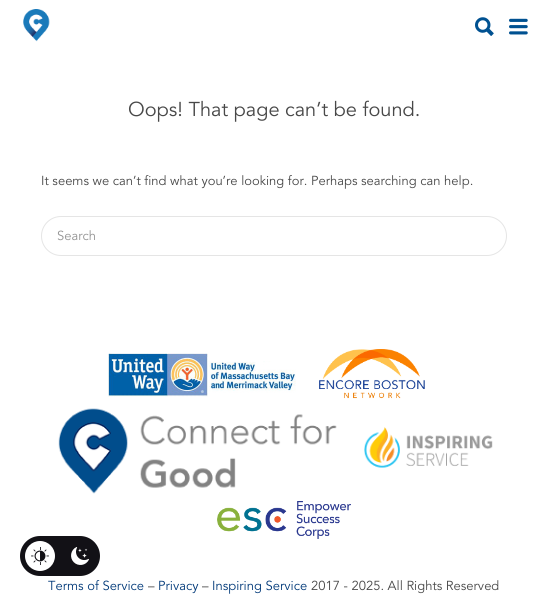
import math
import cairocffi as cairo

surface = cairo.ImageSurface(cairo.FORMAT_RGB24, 548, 596)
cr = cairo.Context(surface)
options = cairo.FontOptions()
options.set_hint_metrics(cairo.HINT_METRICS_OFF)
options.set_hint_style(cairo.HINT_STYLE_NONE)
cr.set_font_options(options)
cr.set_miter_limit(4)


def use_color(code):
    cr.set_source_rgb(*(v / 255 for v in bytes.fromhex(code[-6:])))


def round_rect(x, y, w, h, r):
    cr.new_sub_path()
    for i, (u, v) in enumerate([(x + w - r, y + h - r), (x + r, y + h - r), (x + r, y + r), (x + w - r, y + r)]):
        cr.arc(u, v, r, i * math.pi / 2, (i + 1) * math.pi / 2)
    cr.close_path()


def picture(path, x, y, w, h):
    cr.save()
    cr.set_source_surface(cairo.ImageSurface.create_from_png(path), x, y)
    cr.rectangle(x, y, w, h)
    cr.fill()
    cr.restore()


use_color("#ffffff")
cr.paint()
picture("img1.png", 23, 9, 27, 33)
picture("img2.png", 475, 17, 19, 19)
picture("img3.png", 509, 18, 19, 17)
cr.select_font_face("Avenir")
cr.set_font_size(20)
use_color("#484848")
cr.move_to(128, 116)
cr.show_text("Oops! That page can’t be found.")
cr.set_font_size(13)
cr.move_to(41, 185)
cr.show_text("It seems we can’t find what you’re looking for. Perhaps searching can help.")
round_rect(41.5, 216.5, 465, 39, 19.5)
use_color("#e5e5e5")
cr.set_line_width(1)
cr.stroke()
use_color("#939393")
cr.move_to(57, 240)
cr.show_text("Search")
use_color("#121116")
round_rect(20, 536, 80, 40, 20)
cr.fill()
use_color("#ffffff")
cr.arc(40, 556, 15, 0, 2 * math.pi)
cr.fill()
picture("img4.png", 31, 547, 18, 18)
picture("img5.png", 71, 547, 18, 18)
picture("img6.png", 108, 353, 188, 44)
picture("img7.png", 319, 349, 106, 50)
picture("img8.png", 58, 408, 279, 86)
picture("img9.png", 364, 427, 129, 41)
picture("img10.png", 217, 501, 134, 38)
use_color("#003878")
cr.move_to(48, 590)
cr.show_text("Terms of Service")
use_color("#484848")
cr.move_to(148, 590)
cr.show_text("–")
use_color("#003878")
cr.move_to(158, 590)
cr.show_text("Privacy")
use_color("#484848")
cr.move_to(202, 590)
cr.show_text("–")
use_color("#003878")
cr.move_to(212, 590)
cr.show_text("Inspiring Service")
use_color("#484848")
cr.move_to(311, 590)
cr.show_text("2017 - 2025. All Rights Reserved")
surface.write_to_png("result.png")
